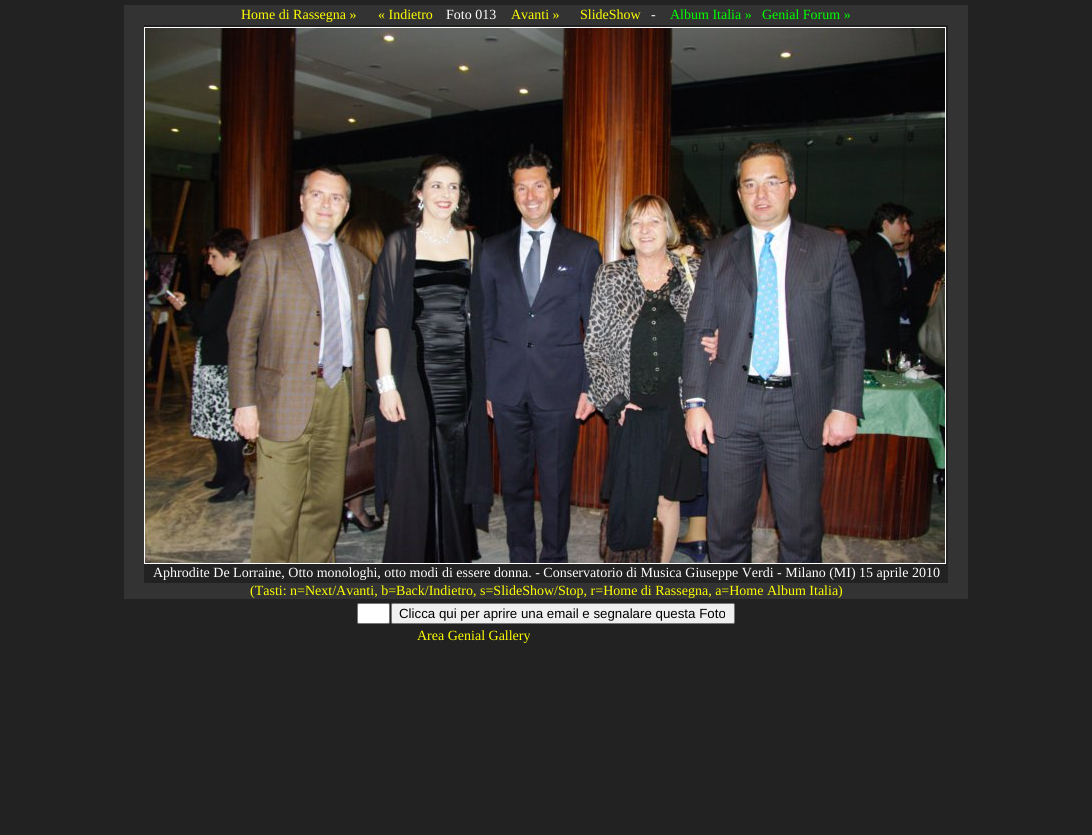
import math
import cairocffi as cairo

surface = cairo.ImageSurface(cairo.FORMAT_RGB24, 1092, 835)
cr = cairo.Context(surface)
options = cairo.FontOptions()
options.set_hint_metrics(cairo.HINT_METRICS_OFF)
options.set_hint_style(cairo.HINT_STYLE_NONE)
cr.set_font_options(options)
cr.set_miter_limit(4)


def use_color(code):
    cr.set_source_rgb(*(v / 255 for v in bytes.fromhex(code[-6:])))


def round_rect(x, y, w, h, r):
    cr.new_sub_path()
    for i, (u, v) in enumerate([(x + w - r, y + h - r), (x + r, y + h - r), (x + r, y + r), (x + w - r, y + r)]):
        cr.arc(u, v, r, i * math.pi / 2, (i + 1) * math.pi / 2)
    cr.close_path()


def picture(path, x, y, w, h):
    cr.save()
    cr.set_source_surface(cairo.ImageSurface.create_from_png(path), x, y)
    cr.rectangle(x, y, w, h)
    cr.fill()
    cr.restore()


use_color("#222222")
cr.paint()
use_color("#333333")
cr.rectangle(124, 5, 844, 20)
cr.fill()
cr.select_font_face("Liberation Serif")
cr.set_font_size(14)
use_color("#ffff00")
cr.move_to(241, 19)
cr.show_text("Home di Rassegna »")
cr.move_to(378, 19)
cr.show_text("« Indietro")
use_color("#ffffff")
cr.move_to(446, 19)
cr.show_text("Foto 013")
use_color("#ffff00")
cr.move_to(511, 19)
cr.show_text("Avanti »")
cr.move_to(580, 19)
cr.show_text("SlideShow")
use_color("#ffffff")
cr.move_to(651, 19)
cr.show_text("-")
use_color("#00ff00")
cr.move_to(670, 19)
cr.show_text("Album Italia »")
cr.move_to(762, 19)
cr.show_text("Genial Forum »")
use_color("#333333")
cr.rectangle(124, 25, 20, 558)
cr.fill()
cr.rectangle(144.5, 27.5, 801, 536)
use_color("#ffffff")
cr.set_line_width(1)
cr.stroke()
picture("img1.png", 145, 28, 800, 535)
cr.move_to(153, 577)
cr.show_text("Aphrodite De Lorraine, Otto monologhi, otto modi di essere donna. - Conservatorio di Musica Giuseppe Verdi - Milano (MI) 15 aprile 2010")
use_color("#333333")
cr.rectangle(948, 25, 20, 558)
cr.fill()
cr.rectangle(124, 583, 844, 16)
cr.fill()
use_color("#ffff00")
cr.move_to(250, 595)
cr.show_text("(Tasti: n=Next/Avanti, b=Back/Indietro, s=SlideShow/Stop, r=Home di Rassegna, a=Home Album Italia)")
use_color("#ffffff")
round_rect(357.5, 603.5, 32, 20, 1.5)
cr.fill_preserve()
use_color("#767676")
cr.stroke()
use_color("#efefef")
round_rect(391.5, 603.5, 343, 20, 1.5)
cr.fill_preserve()
use_color("#767676")
cr.stroke()
cr.select_font_face("Liberation Sans")
cr.set_font_size(13.3)
use_color("#000000")
cr.move_to(399, 618)
cr.show_text("Clicca qui per aprire una email e segnalare questa Foto")
cr.select_font_face("Liberation Serif")
cr.set_font_size(14)
use_color("#ffff00")
cr.move_to(417, 640)
cr.show_text("Area Genial Gallery")
surface.write_to_png("result.png")
